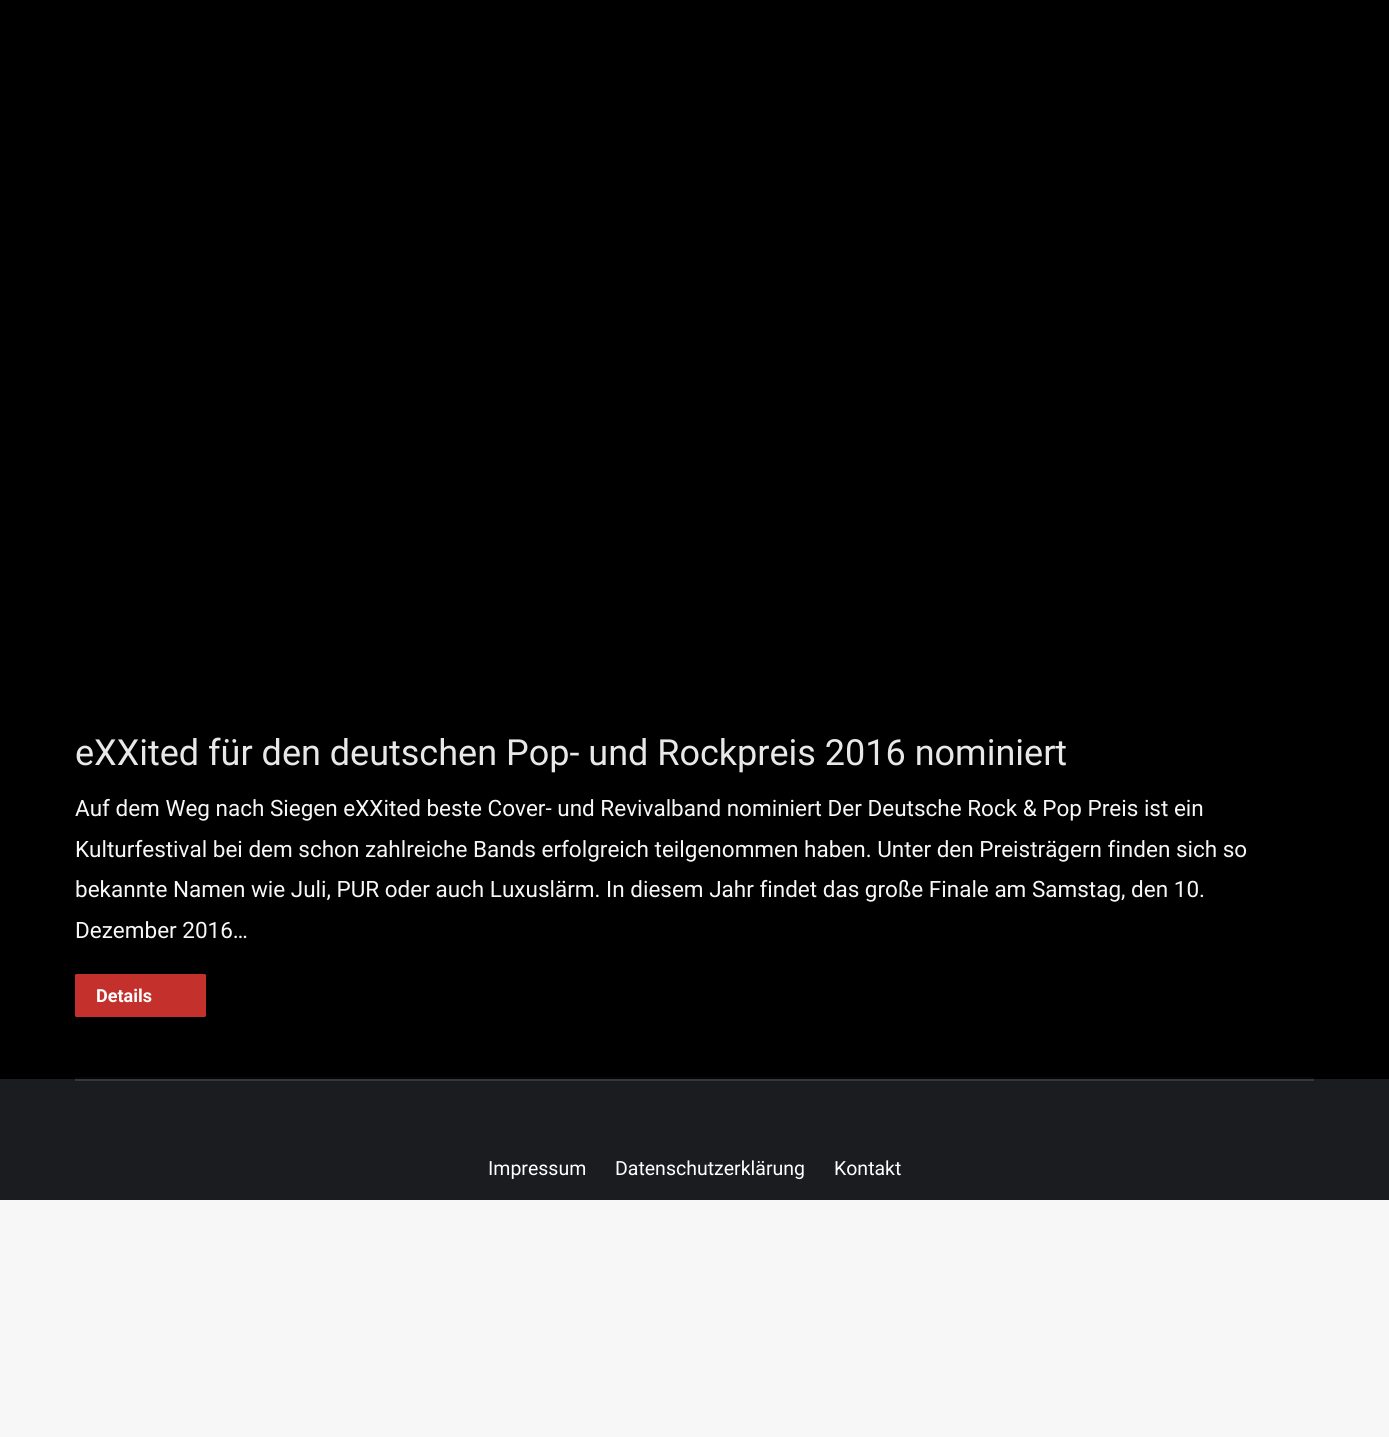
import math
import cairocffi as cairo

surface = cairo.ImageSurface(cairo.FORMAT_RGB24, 1389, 1437)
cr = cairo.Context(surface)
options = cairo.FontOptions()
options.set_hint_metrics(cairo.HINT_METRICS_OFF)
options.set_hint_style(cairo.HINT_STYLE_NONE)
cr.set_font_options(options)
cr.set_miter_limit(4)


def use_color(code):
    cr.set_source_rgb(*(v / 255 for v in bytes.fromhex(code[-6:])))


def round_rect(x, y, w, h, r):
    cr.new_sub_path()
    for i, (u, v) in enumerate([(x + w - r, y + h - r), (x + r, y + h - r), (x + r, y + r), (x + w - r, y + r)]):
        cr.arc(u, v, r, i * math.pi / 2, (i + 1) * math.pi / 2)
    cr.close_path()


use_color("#f7f7f7")
cr.paint()
use_color("#000000")
cr.rectangle(0, 0, 1389, 1079)
cr.fill()
use_color("#060606")
cr.rectangle(75, 1077, 1239, 2)
cr.fill()
cr.select_font_face("Roboto")
cr.set_font_size(36)
use_color("#e8e8e8")
cr.move_to(75, 765)
cr.show_text("eXXited für den deutschen Pop- und Rockpreis 2016 nominiert")
cr.set_font_size(22.5)
use_color("#f7f7f7")
cr.move_to(75, 816)
cr.show_text("Auf dem Weg nach Siegen eXXited beste Cover- und Revivalband nominiert Der Deutsche Rock & Pop Preis ist ein")
cr.move_to(75, 857)
cr.show_text("Kulturfestival bei dem schon zahlreiche Bands erfolgreich teilgenommen haben. Unter den Preisträgern finden sich so")
cr.move_to(75, 897)
cr.show_text("bekannte Namen wie Juli, PUR oder auch Luxuslärm. In diesem Jahr findet das große Finale am Samstag, den 10.")
cr.move_to(75, 938)
cr.show_text("Dezember 2016…")
use_color("#c4302b")
round_rect(75, 974, 131, 43, 1.5)
cr.fill()
cr.select_font_face("Roboto", cairo.FONT_SLANT_NORMAL, cairo.FONT_WEIGHT_BOLD)
cr.set_font_size(18)
use_color("#ffffff")
cr.move_to(96, 1002)
cr.show_text("Details")
use_color("#1a1c20")
cr.rectangle(0, 1079, 1389, 121)
cr.fill()
use_color("#35373b")
cr.rectangle(75, 1079, 1239, 2)
cr.fill()
cr.select_font_face("Roboto")
cr.set_font_size(19.5)
use_color("#ffffff")
cr.move_to(488, 1175)
cr.show_text("Impressum")
cr.move_to(615, 1175)
cr.show_text("Datenschutzerklärung")
cr.move_to(834, 1175)
cr.show_text("Kontakt")
surface.write_to_png("result.png")
